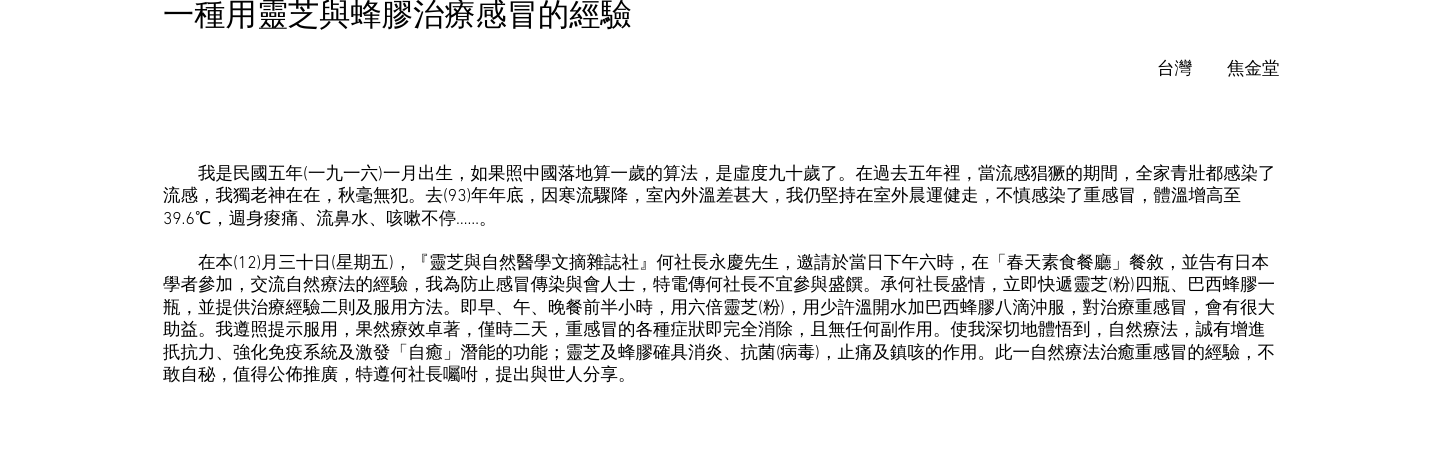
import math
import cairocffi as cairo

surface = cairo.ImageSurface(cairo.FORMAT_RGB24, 1441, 471)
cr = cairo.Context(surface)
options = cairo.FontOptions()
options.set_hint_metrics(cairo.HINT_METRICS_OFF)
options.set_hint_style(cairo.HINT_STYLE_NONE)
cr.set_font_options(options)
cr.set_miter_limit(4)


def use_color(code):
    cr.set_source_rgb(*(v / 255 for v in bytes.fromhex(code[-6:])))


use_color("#ffffff")
cr.paint()
cr.select_font_face("WenQuanYi Zen Hei Medium")
cr.set_font_size(31.25)
use_color("#000000")
cr.move_to(163, 25)
cr.show_text("一種用靈芝與蜂膠治療感冒的經驗")
cr.set_font_size(17.5)
cr.move_to(1157, 74)
cr.show_text("台灣　　焦金堂")
cr.move_to(198, 179)
cr.show_text("我是民國五年")
cr.select_font_face("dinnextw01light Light")
cr.move_to(303, 179)
cr.show_text("(")
cr.select_font_face("WenQuanYi Zen Hei Medium")
cr.move_to(308, 179)
cr.show_text("一九一六")
cr.select_font_face("dinnextw01light Light")
cr.move_to(378, 179)
cr.show_text(")")
cr.select_font_face("WenQuanYi Zen Hei Medium")
cr.move_to(383, 179)
cr.show_text("一月出生，如果照中國落地算一歲的算法，是虛度九十歲了。在過去五年裡，當流感猖獗的期間，全家青壯都感染了")
cr.move_to(163, 201)
cr.show_text("流感，我獨老神在在，秋毫無犯。去")
cr.select_font_face("dinnextw01light Light")
cr.move_to(443, 201)
cr.show_text("(93)")
cr.select_font_face("WenQuanYi Zen Hei Medium")
cr.move_to(471, 201)
cr.show_text("年年底，因寒流驟降，室內外溫差甚大，我仍堅持在室外晨運健走，不慎感染了重感冒，體溫增高至")
cr.select_font_face("dinnextw01light Light")
cr.move_to(163, 224)
cr.show_text("39.6")
cr.select_font_face("WenQuanYi Zen Hei Medium")
cr.move_to(195, 224)
cr.show_text("℃，週身痠痛、流鼻水、咳嗽不停")
cr.select_font_face("dinnextw01light Light")
cr.move_to(456, 224)
cr.show_text("……")
cr.select_font_face("WenQuanYi Zen Hei Medium")
cr.move_to(479, 224)
cr.show_text("。")
cr.move_to(198, 268)
cr.show_text("在本")
cr.select_font_face("dinnextw01light Light")
cr.move_to(233, 268)
cr.show_text("(12)")
cr.select_font_face("WenQuanYi Zen Hei Medium")
cr.move_to(261, 268)
cr.show_text("月三十日")
cr.select_font_face("dinnextw01light Light")
cr.move_to(331, 268)
cr.show_text("(")
cr.select_font_face("WenQuanYi Zen Hei Medium")
cr.move_to(336, 268)
cr.show_text("星期五")
cr.select_font_face("dinnextw01light Light")
cr.move_to(389, 268)
cr.show_text(")")
cr.select_font_face("WenQuanYi Zen Hei Medium")
cr.move_to(394, 268)
cr.show_text("，『靈芝與自然醫學文摘雜誌社』何社長永慶先生，邀請於當日下午六時，在「春天素食餐廳」餐敘，並告有日本")
cr.move_to(163, 290)
cr.show_text("學者參加，交流自然療法的經驗，我為防止感冒傳染與會人士，特電傳何社長不宜參與盛饌。承何社長盛情，立即快遞靈芝")
cr.select_font_face("dinnextw01light Light")
cr.move_to(1108, 290)
cr.show_text("(")
cr.select_font_face("WenQuanYi Zen Hei Medium")
cr.move_to(1113, 290)
cr.show_text("粉")
cr.select_font_face("dinnextw01light Light")
cr.move_to(1130, 290)
cr.show_text(")")
cr.select_font_face("WenQuanYi Zen Hei Medium")
cr.move_to(1135, 290)
cr.show_text("四瓶、巴西蜂膠一")
cr.move_to(163, 313)
cr.show_text("瓶，並提供治療經驗二則及服用方法。即早、午、晚餐前半小時，用六倍靈芝")
cr.select_font_face("dinnextw01light Light")
cr.move_to(758, 313)
cr.show_text("(")
cr.select_font_face("WenQuanYi Zen Hei Medium")
cr.move_to(763, 313)
cr.show_text("粉")
cr.select_font_face("dinnextw01light Light")
cr.move_to(780, 313)
cr.show_text(")")
cr.select_font_face("WenQuanYi Zen Hei Medium")
cr.move_to(785, 313)
cr.show_text("，用少許溫開水加巴西蜂膠八滴沖服，對治療重感冒，會有很大")
cr.move_to(163, 335)
cr.show_text("助益。我遵照提示服用，果然療效卓著，僅時二天，重感冒的各種症狀即完全消除，且無任何副作用。使我深切地體悟到，自然療法，誠有增進")
cr.move_to(163, 358)
cr.show_text("扺抗力、強化免疫系統及激發「自癒」潛能的功能；靈芝及蜂膠確具消炎、抗菌")
cr.select_font_face("dinnextw01light Light")
cr.move_to(776, 358)
cr.show_text("(")
cr.select_font_face("WenQuanYi Zen Hei Medium")
cr.move_to(780, 358)
cr.show_text("病毒")
cr.select_font_face("dinnextw01light Light")
cr.move_to(815, 358)
cr.show_text(")")
cr.select_font_face("WenQuanYi Zen Hei Medium")
cr.move_to(820, 358)
cr.show_text("，止痛及鎮咳的作用。此一自然療法治癒重感冒的經驗，不")
cr.move_to(163, 380)
cr.show_text("敢自秘，值得公佈推廣，特遵何社長囑咐，提出與世人分享。")
surface.write_to_png("result.png")
